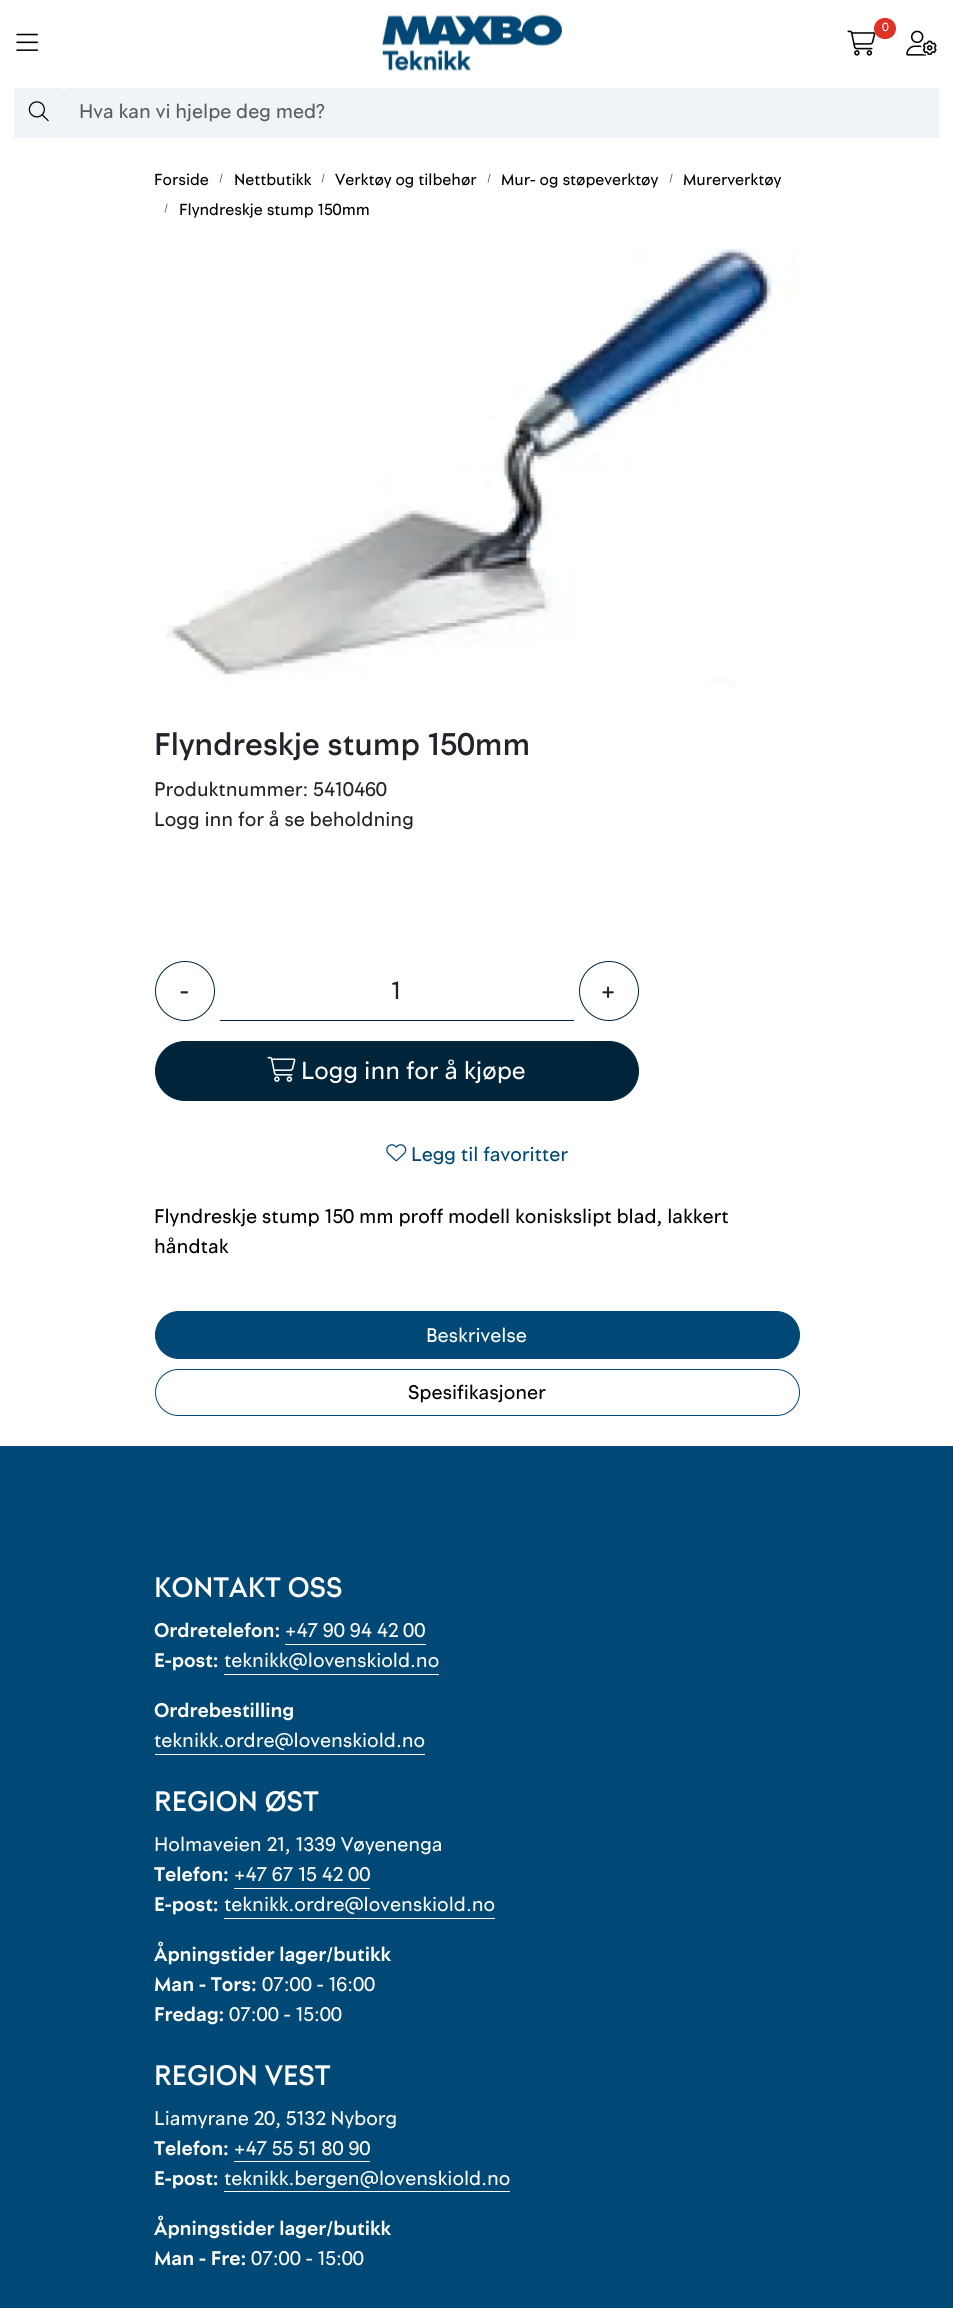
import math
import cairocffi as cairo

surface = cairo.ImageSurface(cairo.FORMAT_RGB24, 953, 2308)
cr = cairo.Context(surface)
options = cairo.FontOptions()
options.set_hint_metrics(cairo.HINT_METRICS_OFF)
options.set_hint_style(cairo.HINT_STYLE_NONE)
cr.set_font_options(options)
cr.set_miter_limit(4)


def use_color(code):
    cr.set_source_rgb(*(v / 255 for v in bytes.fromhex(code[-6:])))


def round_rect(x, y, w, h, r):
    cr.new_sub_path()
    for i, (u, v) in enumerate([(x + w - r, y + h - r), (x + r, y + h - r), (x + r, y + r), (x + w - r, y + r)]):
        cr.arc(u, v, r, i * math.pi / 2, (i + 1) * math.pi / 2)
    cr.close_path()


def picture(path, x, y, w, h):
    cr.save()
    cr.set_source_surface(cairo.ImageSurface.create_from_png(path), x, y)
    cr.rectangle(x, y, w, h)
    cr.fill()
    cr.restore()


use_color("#ffffff")
cr.paint()
picture("img1.png", 382, 14, 181, 58)
picture("img2.png", 847, 30, 29, 26)
use_color("#df3226")
round_rect(874.5, 18.5, 21, 20, 10)
cr.fill_preserve()
cr.set_line_width(1)
cr.stroke()
cr.select_font_face("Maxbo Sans")
cr.set_font_size(12)
use_color("#ffffff")
cr.move_to(882, 31)
cr.show_text("0")
picture("img3.png", 906, 30, 31, 26)
picture("img4.png", 16, 33, 23, 18)
use_color("#f0f3f7")
cr.new_path()
cr.move_to(14, 88)
cr.line_to(60, 88)
cr.curve_to(62, 88, 64, 90, 64, 92)
cr.line_to(64, 134)
cr.curve_to(64, 136, 62, 138, 60, 138)
cr.line_to(14, 138)
cr.close_path()
cr.fill()
picture("img5.png", 28, 101, 21, 21)
cr.new_path()
cr.move_to(68, 88)
cr.line_to(939, 88)
cr.line_to(939, 138)
cr.line_to(68, 138)
cr.curve_to(66, 138, 64, 136, 64, 134)
cr.line_to(64, 92)
cr.curve_to(64, 90, 66, 88, 68, 88)
cr.close_path()
cr.fill()
cr.set_font_size(20)
use_color("#595c5f")
cr.move_to(79, 118)
cr.show_text("Hva kan vi hjelpe deg med?")
cr.set_font_size(16.25)
use_color("#000000")
cr.move_to(154, 185)
cr.show_text("Forside")
cr.set_font_size(12)
use_color("#595c5f")
cr.move_to(219, 182)
cr.show_text("/")
cr.set_font_size(16.25)
use_color("#000000")
cr.move_to(234, 185)
cr.show_text("Nettbutikk")
cr.set_font_size(12)
use_color("#595c5f")
cr.move_to(321, 182)
cr.show_text("/")
cr.set_font_size(16.25)
use_color("#000000")
cr.move_to(335, 185)
cr.show_text("Verktøy og tilbehør")
cr.set_font_size(12)
use_color("#595c5f")
cr.move_to(487, 182)
cr.show_text("/")
cr.set_font_size(16.25)
use_color("#000000")
cr.move_to(501, 185)
cr.show_text("Mur- og støpeverktøy")
cr.set_font_size(12)
use_color("#595c5f")
cr.move_to(669, 182)
cr.show_text("/")
cr.set_font_size(16.25)
use_color("#000000")
cr.move_to(683, 185)
cr.show_text("Murerverktøy")
cr.set_font_size(12)
use_color("#595c5f")
cr.move_to(164, 212)
cr.show_text("/")
cr.set_font_size(16.25)
use_color("#000000")
cr.move_to(179, 215)
cr.show_text("Flyndreskje stump 150mm")
picture("img6.png", 165, 248, 632, 438)
cr.select_font_face("Maxbo Sans Medium")
cr.set_font_size(31.75)
use_color("#212529")
cr.move_to(154, 755)
cr.show_text("Flyndreskje stump 150mm")
cr.select_font_face("Maxbo Sans")
cr.set_font_size(20)
cr.move_to(154, 796)
cr.show_text("Produktnummer: 5410460")
cr.move_to(154, 826)
cr.show_text("Logg inn for å se beholdning")
cr.new_path()
cr.arc(185, 991, 29.5, 0, 2 * math.pi)
use_color("#00253b")
cr.stroke()
cr.set_font_size(25)
use_color("#212529")
cr.move_to(180, 999)
cr.show_text("-")
use_color("#00253b")
cr.rectangle(220, 1020, 354, 1)
cr.fill()
use_color("#212529")
cr.move_to(391, 999)
cr.show_text("1")
cr.new_path()
cr.arc(609, 991, 29.5, 0, 2 * math.pi)
use_color("#00253b")
cr.stroke()
use_color("#212529")
cr.move_to(601, 999)
cr.show_text("+")
use_color("#00253b")
round_rect(155.5, 1041.5, 483, 59, 29.5)
cr.fill_preserve()
cr.stroke()
picture("img7.png", 267, 1056, 29, 26)
use_color("#ffffff")
cr.move_to(301, 1079)
cr.show_text("Logg inn for å kjøpe")
picture("img8.png", 386, 1144, 21, 18)
cr.set_font_size(20)
use_color("#004976")
cr.move_to(411, 1161)
cr.show_text("Legg til favoritter")
use_color("#000000")
cr.move_to(154, 1223)
cr.show_text("Flyndreskje stump 150 mm proff modell koniskslipt blad, lakkert")
cr.move_to(154, 1253)
cr.show_text("håndtak")
use_color("#004976")
round_rect(155.5, 1311.5, 644, 47, 23.5)
cr.fill_preserve()
cr.stroke()
use_color("#ffffff")
cr.move_to(426, 1342)
cr.show_text("Beskrivelse")
round_rect(155.5, 1369.5, 644, 46, 23)
use_color("#004976")
cr.stroke()
use_color("#000000")
cr.move_to(408, 1399)
cr.show_text("Spesifikasjoner")
use_color("#004976")
cr.rectangle(0, 1446, 953, 862)
cr.fill()
cr.select_font_face("Maxbo Sans Medium")
cr.set_font_size(28.5)
use_color("#ffffff")
cr.move_to(154, 1597)
cr.show_text("KONTAKT OSS")
cr.select_font_face("Maxbo Sans", cairo.FONT_SLANT_NORMAL, cairo.FONT_WEIGHT_BOLD)
cr.set_font_size(20)
cr.move_to(154, 1637)
cr.show_text("Ordretelefon:")
cr.select_font_face("Maxbo Sans")
cr.move_to(285, 1637)
cr.show_text("+47 90 94 42 00")
cr.rectangle(285, 1644, 141, 1)
cr.fill()
cr.select_font_face("Maxbo Sans", cairo.FONT_SLANT_NORMAL, cairo.FONT_WEIGHT_BOLD)
cr.move_to(154, 1667)
cr.show_text("E-post:")
cr.select_font_face("Maxbo Sans")
cr.move_to(224, 1667)
cr.show_text("teknikk@lovenskiold.no")
cr.rectangle(224, 1674, 215, 1)
cr.fill()
cr.select_font_face("Maxbo Sans", cairo.FONT_SLANT_NORMAL, cairo.FONT_WEIGHT_BOLD)
cr.move_to(154, 1717)
cr.show_text("Ordrebestilling")
cr.select_font_face("Maxbo Sans")
cr.move_to(154, 1747)
cr.show_text("teknikk.ordre@lovenskiold.no")
cr.rectangle(155, 1754, 270, 1)
cr.fill()
cr.select_font_face("Maxbo Sans Medium")
cr.set_font_size(28.5)
cr.move_to(154, 1811)
cr.show_text("REGION ØST")
cr.select_font_face("Maxbo Sans")
cr.set_font_size(20)
cr.move_to(154, 1851)
cr.show_text("Holmaveien 21, 1339 Vøyenenga")
cr.select_font_face("Maxbo Sans", cairo.FONT_SLANT_NORMAL, cairo.FONT_WEIGHT_BOLD)
cr.move_to(154, 1881)
cr.show_text("Telefon:")
cr.select_font_face("Maxbo Sans")
cr.move_to(234, 1881)
cr.show_text("+47 67 15 42 00")
cr.rectangle(234, 1888, 136, 1)
cr.fill()
cr.select_font_face("Maxbo Sans", cairo.FONT_SLANT_NORMAL, cairo.FONT_WEIGHT_BOLD)
cr.move_to(154, 1911)
cr.show_text("E-post:")
cr.select_font_face("Maxbo Sans")
cr.move_to(224, 1911)
cr.show_text("teknikk.ordre@lovenskiold.no")
cr.rectangle(224, 1918, 271, 1)
cr.fill()
cr.select_font_face("Maxbo Sans", cairo.FONT_SLANT_NORMAL, cairo.FONT_WEIGHT_BOLD)
cr.move_to(154, 1961)
cr.show_text("Åpningstider lager/butikk")
cr.move_to(154, 1991)
cr.show_text("Man - Tors:")
cr.select_font_face("Maxbo Sans")
cr.move_to(262, 1991)
cr.show_text("07:00 - 16:00")
cr.select_font_face("Maxbo Sans", cairo.FONT_SLANT_NORMAL, cairo.FONT_WEIGHT_BOLD)
cr.move_to(154, 2021)
cr.show_text("Fredag:")
cr.select_font_face("Maxbo Sans")
cr.move_to(229, 2021)
cr.show_text("07:00 - 15:00")
cr.select_font_face("Maxbo Sans Medium")
cr.set_font_size(28.5)
cr.move_to(154, 2085)
cr.show_text("REGION VEST")
cr.select_font_face("Maxbo Sans")
cr.set_font_size(20)
cr.move_to(154, 2125)
cr.show_text("Liamyrane 20, 5132 Nyborg")
cr.select_font_face("Maxbo Sans", cairo.FONT_SLANT_NORMAL, cairo.FONT_WEIGHT_BOLD)
cr.move_to(154, 2155)
cr.show_text("Telefon:")
cr.select_font_face("Maxbo Sans")
cr.move_to(234, 2155)
cr.show_text("+47 55 51 80 90")
cr.rectangle(234, 2161, 136, 1)
cr.fill()
cr.select_font_face("Maxbo Sans", cairo.FONT_SLANT_NORMAL, cairo.FONT_WEIGHT_BOLD)
cr.move_to(154, 2185)
cr.show_text("E-post:")
cr.select_font_face("Maxbo Sans")
cr.move_to(224, 2185)
cr.show_text("teknikk.bergen@lovenskiold.no")
cr.rectangle(224, 2191, 286, 1)
cr.fill()
cr.select_font_face("Maxbo Sans", cairo.FONT_SLANT_NORMAL, cairo.FONT_WEIGHT_BOLD)
cr.move_to(154, 2235)
cr.show_text("Åpningstider lager/butikk")
cr.move_to(154, 2265)
cr.show_text("Man - Fre:")
cr.select_font_face("Maxbo Sans")
cr.move_to(251, 2265)
cr.show_text("07:00 - 15:00")
surface.write_to_png("result.png")
